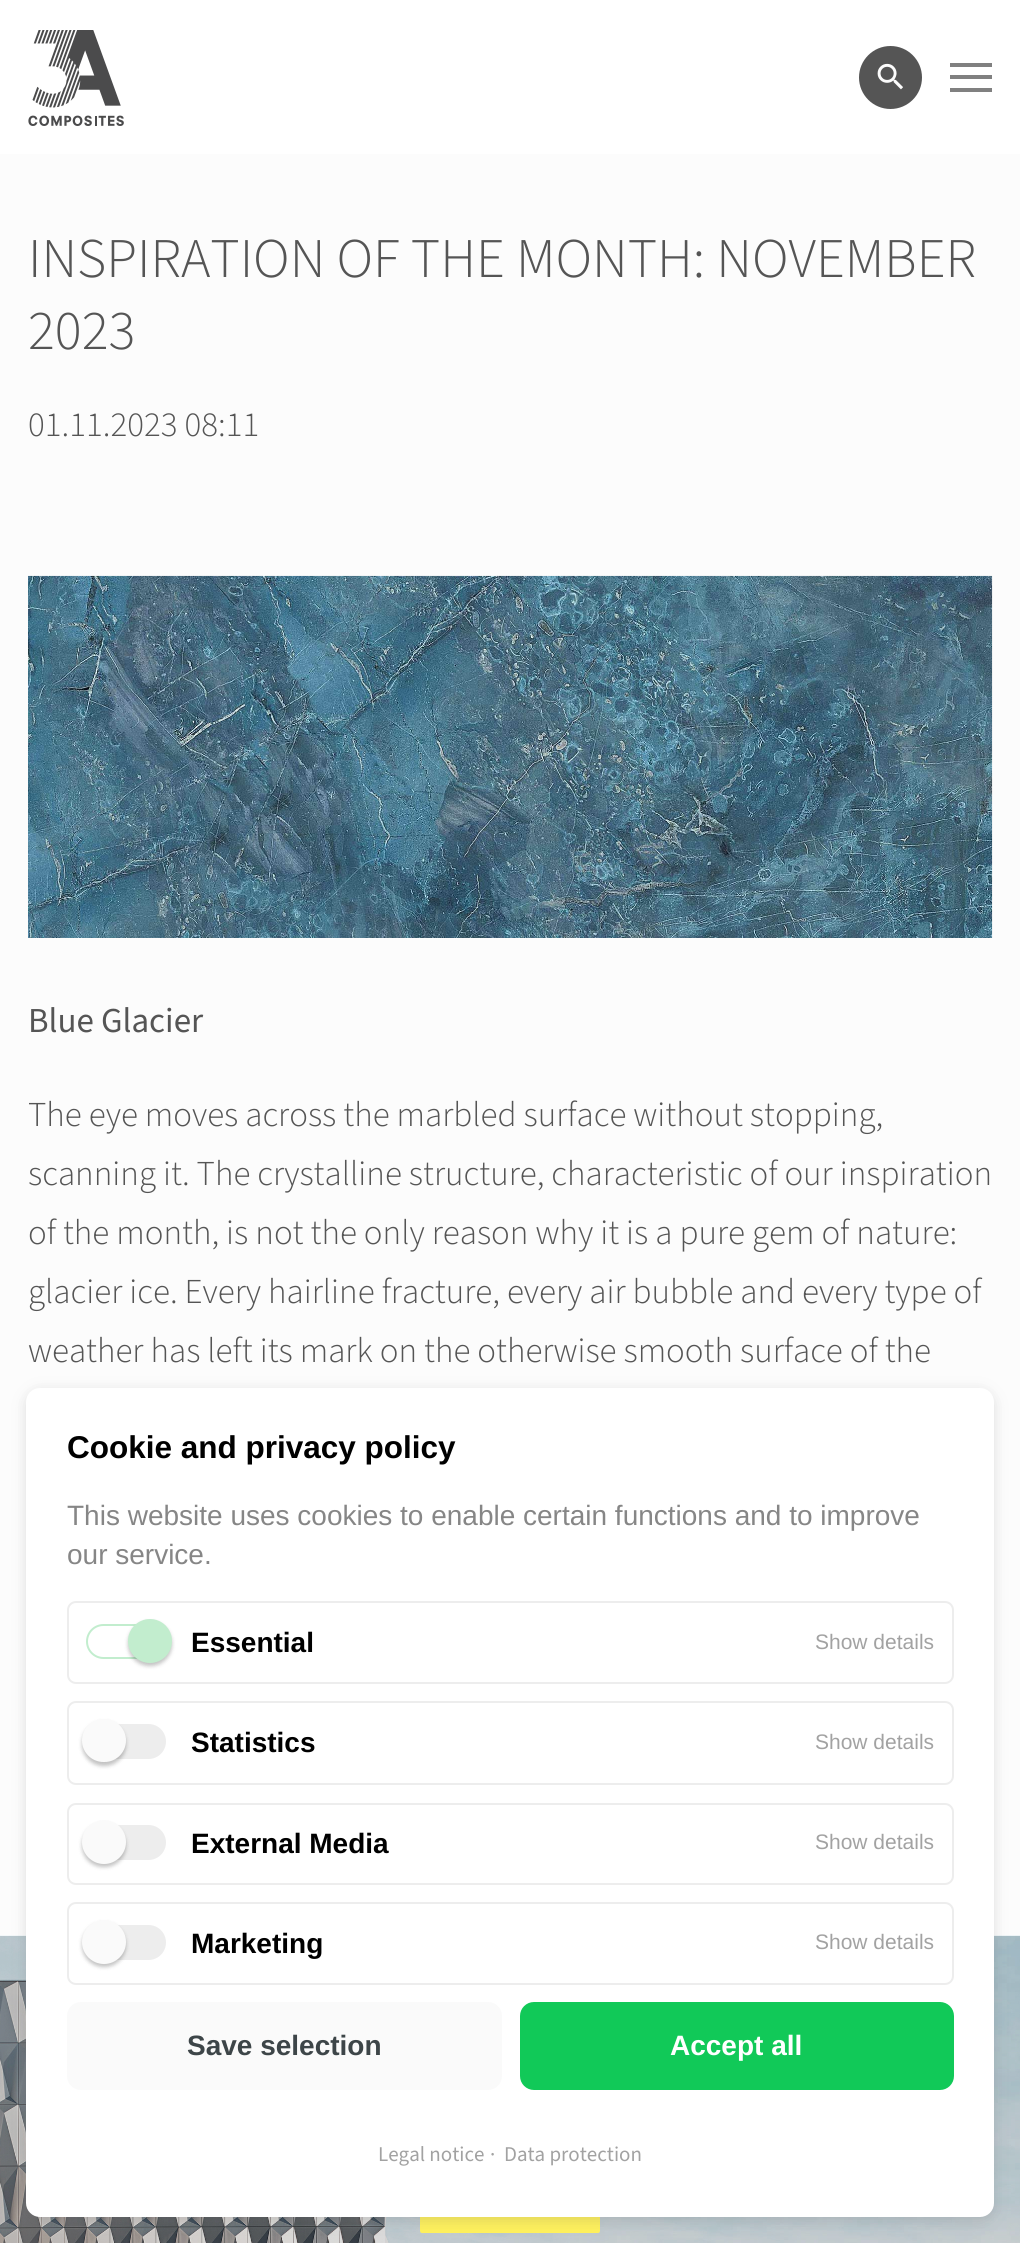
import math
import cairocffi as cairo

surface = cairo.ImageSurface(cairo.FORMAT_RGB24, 1020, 2243)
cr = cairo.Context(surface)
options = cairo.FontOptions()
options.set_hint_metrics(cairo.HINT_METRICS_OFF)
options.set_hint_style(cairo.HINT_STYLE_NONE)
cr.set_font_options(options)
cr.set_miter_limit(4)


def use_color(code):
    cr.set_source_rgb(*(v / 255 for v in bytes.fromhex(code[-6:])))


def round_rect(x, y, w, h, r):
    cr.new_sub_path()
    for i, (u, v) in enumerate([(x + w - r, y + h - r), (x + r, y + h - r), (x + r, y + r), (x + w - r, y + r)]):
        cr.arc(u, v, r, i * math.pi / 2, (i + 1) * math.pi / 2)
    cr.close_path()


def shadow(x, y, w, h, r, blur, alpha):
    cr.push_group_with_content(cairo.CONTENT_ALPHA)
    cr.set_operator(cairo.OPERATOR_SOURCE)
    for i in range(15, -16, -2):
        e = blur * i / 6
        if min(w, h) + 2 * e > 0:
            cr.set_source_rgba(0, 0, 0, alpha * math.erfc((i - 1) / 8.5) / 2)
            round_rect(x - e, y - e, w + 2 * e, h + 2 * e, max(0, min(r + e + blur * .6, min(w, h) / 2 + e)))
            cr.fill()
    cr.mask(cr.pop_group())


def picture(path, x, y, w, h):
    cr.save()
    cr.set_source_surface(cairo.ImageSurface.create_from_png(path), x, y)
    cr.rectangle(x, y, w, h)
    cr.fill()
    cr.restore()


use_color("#fcfcfc")
cr.paint()
use_color("#ffffff")
cr.rectangle(0, 0, 1020, 154)
cr.fill()
picture("img1.png", 28, 30, 96, 96)
use_color("#555555")
cr.arc(890.5, 77.5, 31.5, 0, 2 * math.pi)
cr.fill()
picture("img2.png", 877, 63, 26, 27)
use_color("#808080")
cr.rectangle(950, 63, 42, 4)
cr.fill()
cr.rectangle(950, 75, 42, 4)
cr.fill()
cr.rectangle(950, 88, 42, 4)
cr.fill()
cr.select_font_face("Source Sans 3 Light")
cr.set_font_size(56)
use_color("#555555")
cr.move_to(28, 277)
cr.show_text("INSPIRATION OF THE MONTH: NOVEMBER")
cr.move_to(28, 349)
cr.show_text("2023")
cr.set_font_size(35)
cr.move_to(28, 436)
cr.show_text("01.11.2023 08:11")
picture("img3.png", 28, 575, 965, 363)
cr.select_font_face("Source Sans 3")
cr.move_to(28, 1032)
cr.show_text("Blue Glacier")
cr.select_font_face("Source Sans 3 Light")
cr.move_to(28, 1126)
cr.show_text("The eye moves across the marbled surface without stopping,")
cr.move_to(28, 1185)
cr.show_text("scanning it. The crystalline structure, characteristic of our inspiration")
cr.move_to(28, 1244)
cr.show_text("of the month, is not the only reason why it is a pure gem of nature:")
cr.move_to(28, 1303)
cr.show_text("glacier ice. Every hairline fracture, every air bubble and every type of")
cr.move_to(28, 1362)
cr.show_text("weather has left its mark on the otherwise smooth surface of the")
picture("img4.png", 0, 1935, 1020, 308)
use_color("#fff15c")
round_rect(421, 2173, 178, 59, 1)
cr.fill_preserve()
cr.stroke()
use_color("#636363")
shadow(26, 1391, 968, 830, 14, 7, 0.2)
use_color("#ffffff")
round_rect(26, 1388, 968, 829, 14)
cr.fill()
cr.select_font_face("Liberation Sans", cairo.FONT_SLANT_NORMAL, cairo.FONT_WEIGHT_BOLD)
cr.set_font_size(31.5)
use_color("#000000")
cr.move_to(67, 1458)
cr.show_text("Cookie and privacy policy")
cr.select_font_face("Liberation Sans")
cr.set_font_size(28)
use_color("#868686")
cr.move_to(67, 1525)
cr.show_text("This website uses cookies to enable certain functions and to improve")
cr.move_to(67, 1564)
cr.show_text("our service.")
round_rect(68, 1602, 885, 81, 8)
use_color("#ededed")
cr.stroke()
round_rect(87, 1625, 78, 33, 16.5)
use_color("#c2edce")
cr.stroke()
use_color("#000000")
shadow(128, 1622, 44, 44, 22, 2, 0.24)
use_color("#c2edce")
cr.arc(150, 1641, 22, 0, 2 * math.pi)
cr.fill()
cr.select_font_face("Liberation Sans", cairo.FONT_SLANT_NORMAL, cairo.FONT_WEIGHT_BOLD)
use_color("#000000")
cr.move_to(191, 1652)
cr.show_text("Essential")
cr.select_font_face("Liberation Sans")
cr.set_font_size(21)
use_color("#a2a2a2")
cr.move_to(815, 1649)
cr.show_text("Show details")
round_rect(68, 1702, 885, 82, 8)
use_color("#ededed")
cr.stroke()
round_rect(86, 1724, 80, 35, 17.5)
cr.fill()
use_color("#000000")
shadow(82, 1722, 44, 44, 22, 2, 0.24)
use_color("#fafafa")
round_rect(82, 1719, 44, 43, 21.5)
cr.fill()
cr.select_font_face("Liberation Sans", cairo.FONT_SLANT_NORMAL, cairo.FONT_WEIGHT_BOLD)
cr.set_font_size(28)
use_color("#000000")
cr.move_to(191, 1752)
cr.show_text("Statistics")
cr.select_font_face("Liberation Sans")
cr.set_font_size(21)
use_color("#a2a2a2")
cr.move_to(815, 1749)
cr.show_text("Show details")
round_rect(68, 1804, 885, 80, 8)
use_color("#ededed")
cr.stroke()
round_rect(86, 1825, 80, 35, 17.5)
cr.fill()
use_color("#000000")
shadow(82, 1824, 44, 43, 21.5, 2, 0.24)
use_color("#fafafa")
cr.arc(104, 1842, 22, 0, 2 * math.pi)
cr.fill()
cr.select_font_face("Liberation Sans", cairo.FONT_SLANT_NORMAL, cairo.FONT_WEIGHT_BOLD)
cr.set_font_size(28)
use_color("#000000")
cr.move_to(191, 1853)
cr.show_text("External Media")
cr.select_font_face("Liberation Sans")
cr.set_font_size(21)
use_color("#a2a2a2")
cr.move_to(815, 1849)
cr.show_text("Show details")
round_rect(68, 1903, 885, 81, 8)
use_color("#ededed")
cr.stroke()
round_rect(86, 1925, 80, 35, 17.5)
cr.fill()
use_color("#000000")
shadow(82, 1923, 44, 44, 22, 2, 0.24)
use_color("#fafafa")
cr.arc(104, 1942, 22, 0, 2 * math.pi)
cr.fill()
cr.select_font_face("Liberation Sans", cairo.FONT_SLANT_NORMAL, cairo.FONT_WEIGHT_BOLD)
cr.set_font_size(28)
use_color("#000000")
cr.move_to(191, 1953)
cr.show_text("Marketing")
cr.select_font_face("Liberation Sans")
cr.set_font_size(21)
use_color("#a2a2a2")
cr.move_to(815, 1949)
cr.show_text("Show details")
use_color("#fafafa")
round_rect(67, 2002, 435, 88, 14)
cr.fill()
cr.select_font_face("Liberation Sans", cairo.FONT_SLANT_NORMAL, cairo.FONT_WEIGHT_BOLD)
cr.set_font_size(28)
use_color("#3d4548")
cr.move_to(187, 2055)
cr.show_text("Save selection")
use_color("#11c958")
round_rect(521, 2003, 432, 86, 13)
cr.fill_preserve()
cr.stroke()
use_color("#ffffff")
cr.move_to(670, 2055)
cr.show_text("Accept all")
cr.select_font_face("Source Sans 3")
cr.set_font_size(21)
use_color("#a2a2a2")
cr.move_to(378, 2161)
cr.show_text("Legal notice")
cr.move_to(490, 2161)
cr.show_text("·")
cr.move_to(504, 2161)
cr.show_text("Data protection")
surface.write_to_png("result.png")
